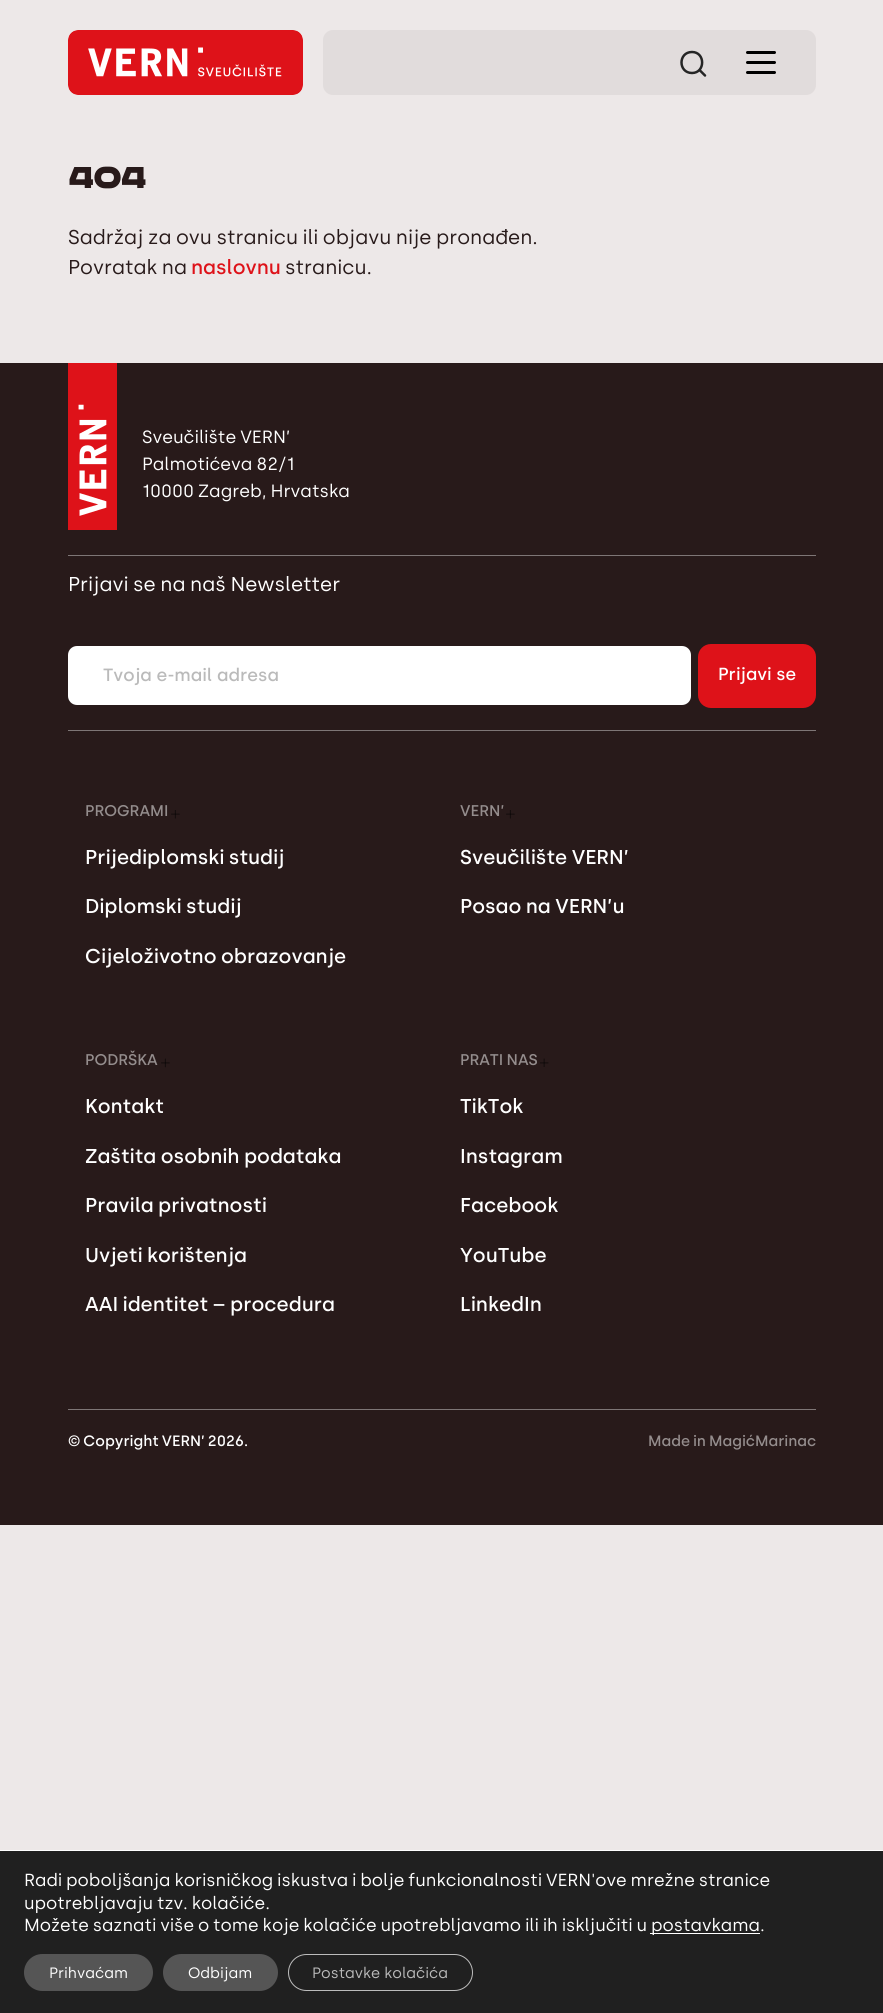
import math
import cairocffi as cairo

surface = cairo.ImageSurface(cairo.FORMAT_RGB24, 883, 2013)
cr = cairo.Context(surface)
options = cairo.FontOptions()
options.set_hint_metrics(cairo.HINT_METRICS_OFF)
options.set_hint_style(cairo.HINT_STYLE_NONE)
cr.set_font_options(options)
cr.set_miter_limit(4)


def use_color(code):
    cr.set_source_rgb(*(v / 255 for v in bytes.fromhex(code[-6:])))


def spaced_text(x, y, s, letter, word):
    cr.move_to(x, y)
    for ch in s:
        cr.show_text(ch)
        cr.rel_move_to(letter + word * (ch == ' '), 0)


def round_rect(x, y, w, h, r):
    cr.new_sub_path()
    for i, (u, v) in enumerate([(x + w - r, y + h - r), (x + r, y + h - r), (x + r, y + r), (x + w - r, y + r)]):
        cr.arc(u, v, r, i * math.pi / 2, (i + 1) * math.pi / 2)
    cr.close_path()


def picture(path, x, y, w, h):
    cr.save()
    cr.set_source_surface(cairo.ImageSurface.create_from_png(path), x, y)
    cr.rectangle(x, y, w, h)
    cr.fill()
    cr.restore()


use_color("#ede8e8")
cr.paint()
picture("img1.png", 68, 30, 235, 65)
use_color("#e1dcdc")
round_rect(323, 30, 493, 65, 10)
cr.fill()
cr.new_path()
cr.move_to(692, 73)
cr.curve_to(705.5, 73, 705.5, 52, 692, 52)
cr.curve_to(678, 52, 678, 73, 692, 73)
cr.close_path()
cr.move_to(705, 75.5)
cr.line_to(699.5, 70)
use_color("#252525")
cr.set_line_width(2.5)
cr.set_line_cap(cairo.LINE_CAP_ROUND)
cr.set_line_join(cairo.LINE_JOIN_ROUND)
cr.stroke()
use_color("#000000")
round_rect(746, 51, 30, 3, 1.5)
cr.fill()
round_rect(746, 61, 30, 3, 1.5)
cr.fill()
round_rect(746, 71, 30, 3, 1.5)
cr.fill()
cr.select_font_face("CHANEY")
cr.set_font_size(30)
use_color("#281a1a")
spaced_text(68, 188, "404", -1, 0)
cr.select_font_face("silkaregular")
cr.set_font_size(20)
spaced_text(68, 244, "Sadržaj za ovu stranicu ili objavu nije pronađen.", 0, -1)
spaced_text(68, 274, "Povratak na", 0, -1)
cr.select_font_face("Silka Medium")
use_color("#de1219")
cr.move_to(191, 274)
cr.show_text("naslovnu")
cr.select_font_face("silkaregular")
use_color("#281a1a")
cr.move_to(285, 274)
cr.show_text("stranicu.")
cr.rectangle(0, 363, 883, 1162)
cr.fill()
use_color("#7e7676")
cr.rectangle(68, 555, 748, 1)
cr.fill()
picture("img2.png", 68, 363, 49, 167)
cr.set_font_size(17.75)
use_color("#ffffff")
spaced_text(142, 443, "Sveučilište VERN’", 0, -1)
spaced_text(142, 470, "Palmotićeva 82/1", 0, -1)
spaced_text(142, 497, "10000 Zagreb, Hrvatska", 0, -1)
use_color("#7e7676")
cr.rectangle(68, 730, 748, 1)
cr.fill()
cr.set_font_size(20)
use_color("#ffffff")
spaced_text(68, 591, "Prijavi se na naš Newsletter", 0, -1)
round_rect(68, 646, 623, 59, 9)
cr.fill()
cr.select_font_face("Silka Medium")
cr.set_font_size(17.75)
use_color("#bababa")
cr.move_to(103, 681)
cr.show_text("Tvoja e-mail adresa")
use_color("#de1219")
round_rect(698, 644, 118, 64, 13)
cr.fill()
cr.set_font_size(17.5)
use_color("#ffffff")
cr.move_to(718, 680)
cr.show_text("Prijavi se")
use_color("#7e7676")
cr.rectangle(68, 1409, 748, 1)
cr.fill()
cr.set_font_size(15.5)
use_color("#948d8d")
cr.move_to(85, 816)
cr.show_text("PROGRAMI")
picture("img3.png", 171, 810, 9, 9)
cr.set_font_size(20)
use_color("#ffffff")
spaced_text(85, 864, "Prijediplomski studij", 0, -1)
spaced_text(85, 913, "Diplomski studij", 0, -1)
spaced_text(85, 963, "Cijeloživotno obrazovanje", 0, -1)
cr.set_font_size(15.5)
use_color("#948d8d")
cr.move_to(460, 816)
cr.show_text("VERN’")
picture("img3.png", 506, 810, 9, 9)
cr.set_font_size(20)
use_color("#ffffff")
spaced_text(460, 864, "Sveučilište VERN’", 0, -1)
spaced_text(460, 913, "Posao na VERN’u", 0, -1)
cr.set_font_size(15.5)
use_color("#948d8d")
cr.move_to(85, 1065)
cr.show_text("PODRŠKA")
picture("img4.png", 161, 1058, 9, 10)
cr.set_font_size(20)
use_color("#ffffff")
cr.move_to(85, 1113)
cr.show_text("Kontakt")
spaced_text(85, 1163, "Zaštita osobnih podataka", 0, -1)
spaced_text(85, 1212, "Pravila privatnosti", 0, -1)
spaced_text(85, 1262, "Uvjeti korištenja", 0, -1)
spaced_text(85, 1311, "AAI identitet – procedura", 0, -1)
cr.set_font_size(15.5)
use_color("#948d8d")
spaced_text(460, 1065, "PRATI NAS", 0, -1)
picture("img5.png", 540, 1058, 9, 9)
cr.set_font_size(20)
use_color("#ffffff")
cr.move_to(460, 1113)
cr.show_text("TikTok")
cr.move_to(460, 1163)
cr.show_text("Instagram")
cr.move_to(460, 1212)
cr.show_text("Facebook")
cr.move_to(460, 1262)
cr.show_text("YouTube")
cr.move_to(460, 1311)
cr.show_text("LinkedIn")
cr.set_font_size(15)
spaced_text(68, 1446, "© Copyright VERN’ 2026.", 0, -1)
use_color("#948d8d")
cr.move_to(648, 1446)
cr.show_text("Made")
spaced_text(693, 1446, "in MagićMarinac", 0, -1)
use_color("#202020")
cr.rectangle(0, 1851, 883, 162)
cr.fill()
use_color("#ffffff")
cr.rectangle(0, 1850, 883, 1)
cr.fill()
cr.select_font_face("silkaregular")
cr.set_font_size(17.5)
spaced_text(24, 1886, "Radi poboljšanja korisničkog iskustva i bolje funkcionalnosti VERN'ove mrežne stranice", 0, -1)
spaced_text(24, 1909, "upotrebljavaju tzv. kolačiće.", 0, -1)
spaced_text(24, 1931, "Možete saznati više o tome koje kolačiće upotrebljavamo ili ih isključiti u", 0, -1)
cr.rectangle(650, 1933, 110, 1)
cr.fill()
cr.move_to(651, 1931)
cr.show_text("postavkama.")
use_color("#555555")
round_rect(24, 1954, 129, 37, 18.5)
cr.fill()
cr.set_font_size(15)
use_color("#ffffff")
cr.move_to(49, 1978)
cr.show_text("Prihvaćam")
use_color("#555555")
round_rect(163, 1954, 115, 37, 18.5)
cr.fill()
use_color("#ffffff")
cr.move_to(188, 1978)
cr.show_text("Odbijam")
round_rect(288.5, 1954.5, 184, 36, 18)
use_color("#bcbcbc")
cr.set_line_width(1)
cr.set_line_cap(cairo.LINE_CAP_BUTT)
cr.set_line_join(cairo.LINE_JOIN_MITER)
cr.stroke()
use_color("#bababa")
cr.move_to(312, 1978)
cr.show_text("Postavke kolačića")
surface.write_to_png("result.png")
